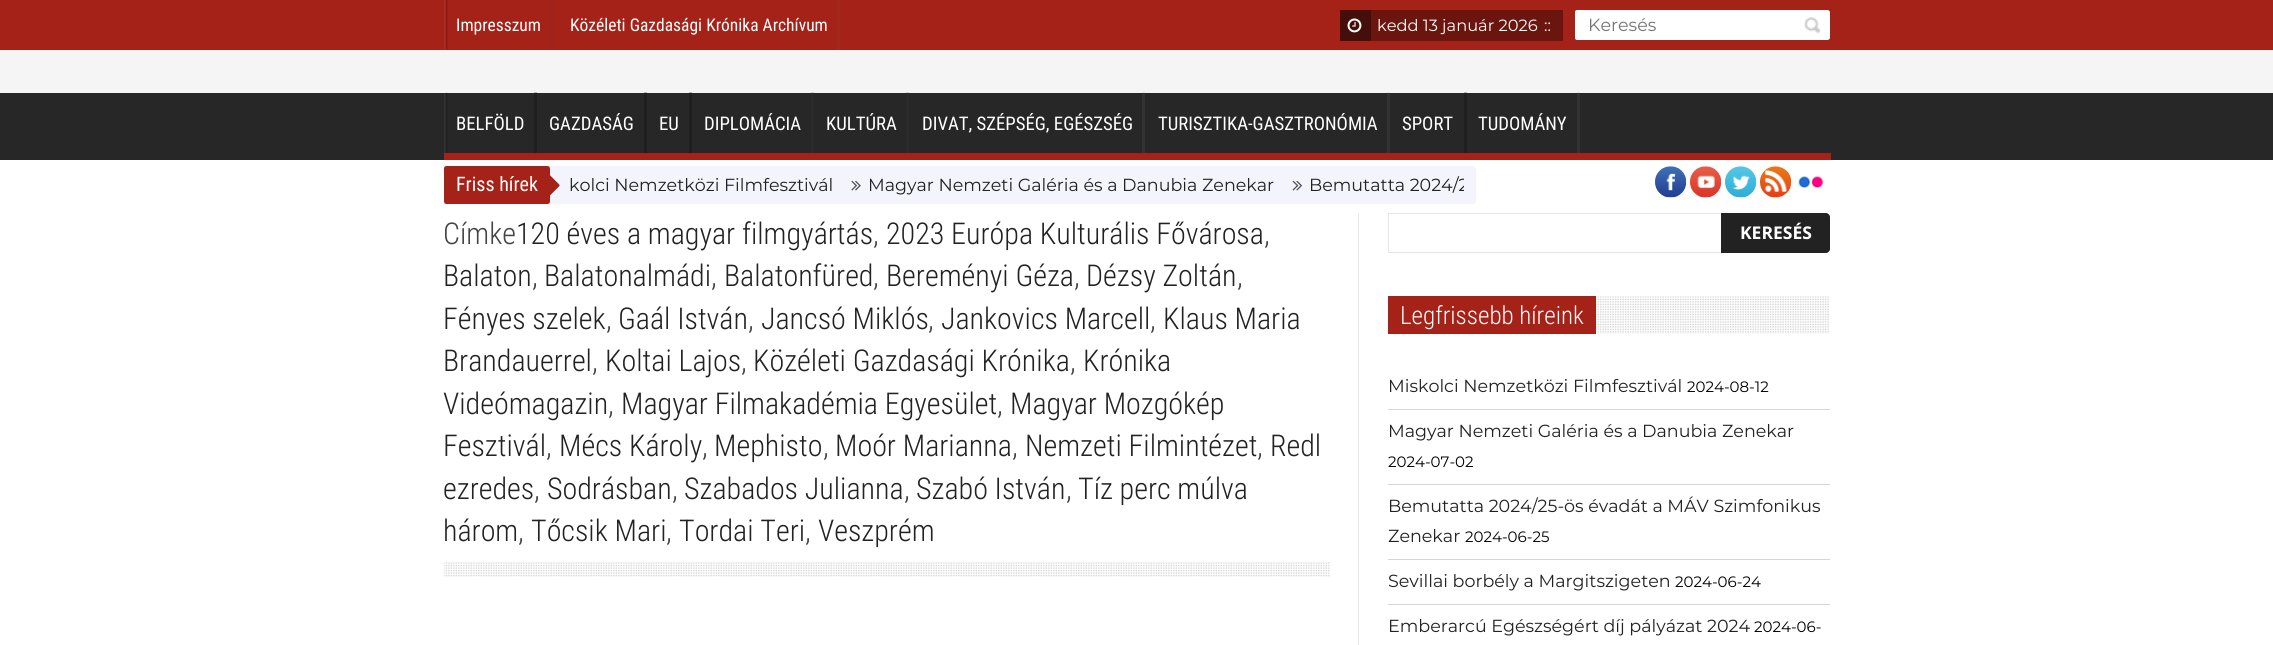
import math
import cairocffi as cairo

surface = cairo.ImageSurface(cairo.FORMAT_RGB24, 2273, 645)
cr = cairo.Context(surface)
options = cairo.FontOptions()
options.set_hint_metrics(cairo.HINT_METRICS_OFF)
options.set_hint_style(cairo.HINT_STYLE_NONE)
cr.set_font_options(options)
cr.set_miter_limit(4)


def use_color(code):
    cr.set_source_rgb(*(v / 255 for v in bytes.fromhex(code[-6:])))


def round_rect(x, y, w, h, r):
    cr.new_sub_path()
    for i, (u, v) in enumerate([(x + w - r, y + h - r), (x + r, y + h - r), (x + r, y + r), (x + w - r, y + r)]):
        cr.arc(u, v, r, i * math.pi / 2, (i + 1) * math.pi / 2)
    cr.close_path()


def picture(path, x, y, w, h):
    cr.save()
    cr.set_source_surface(cairo.ImageSurface.create_from_png(path), x, y)
    cr.rectangle(x, y, w, h)
    cr.fill()
    cr.restore()


use_color("#ffffff")
cr.paint()
use_color("#a52218")
cr.rectangle(0, 0, 2273, 50)
cr.fill()
picture("img1.png", 444, 0, 4, 50)
use_color("#9b251c")
cr.rectangle(551, 0, 3, 50)
cr.fill()
cr.select_font_face("Roboto Condensed")
cr.set_font_size(17.5)
use_color("#ffffff")
cr.move_to(456, 31)
cr.show_text("Impresszum")
use_color("#a2281f")
cr.rectangle(837, 0, 3, 50)
cr.fill()
use_color("#ffffff")
cr.move_to(570, 31)
cr.show_text("Közéleti Gazdasági Krónika Archívum")
use_color("#6a160f")
cr.rectangle(1371, 10, 192, 31)
cr.fill()
use_color("#440e0a")
cr.rectangle(1340, 10, 31, 31)
cr.fill()
picture("img2.png", 1347, 18, 15, 15)
cr.select_font_face("Montserrat")
cr.set_font_size(16.25)
use_color("#ffffff")
cr.move_to(1377, 31)
cr.show_text("kedd 13 január 2026")
cr.move_to(1544, 31)
cr.show_text("::")
round_rect(1575, 10, 255, 30, 2.5)
cr.fill()
cr.new_path()
cr.move_to(1577.5, 10)
cr.line_to(1788, 10)
cr.line_to(1788, 40)
cr.line_to(1577.5, 40)
cr.curve_to(1576, 40, 1575, 39, 1575, 37.5)
cr.line_to(1575, 12.5)
cr.curve_to(1575, 11, 1576, 10, 1577.5, 10)
cr.close_path()
cr.fill()
cr.set_font_size(17.5)
use_color("#757575")
cr.move_to(1588, 31)
cr.show_text("Keresés")
picture("img3.png", 1804, 17, 17, 17)
use_color("#f5f5f5")
cr.rectangle(0, 50, 2273, 43)
cr.fill()
use_color("#e4e4e4")
cr.rectangle(1577, 92, 3, 1)
cr.fill()
use_color("#bbbbbb")
cr.rectangle(1464, 92, 3, 1)
cr.fill()
use_color("#e4e4e4")
cr.rectangle(1387, 92, 3, 1)
cr.fill()
cr.rectangle(1142, 92, 3, 1)
cr.fill()
use_color("#d2d2d2")
cr.rectangle(906, 92, 3, 1)
cr.fill()
cr.rectangle(811, 92, 3, 1)
cr.fill()
use_color("#bbbbbb")
cr.rectangle(689, 92, 3, 1)
cr.fill()
cr.rectangle(644, 92, 3, 1)
cr.fill()
cr.rectangle(534, 92, 3, 1)
cr.fill()
use_color("#272727")
cr.rectangle(0, 93, 2273, 67)
cr.fill()
use_color("#323232")
cr.rectangle(1577, 93, 3, 62)
cr.fill()
use_color("#1f1f1f")
cr.rectangle(1464, 93, 3, 62)
cr.fill()
use_color("#323232")
cr.rectangle(1387, 93, 3, 62)
cr.fill()
cr.rectangle(1142, 93, 3, 62)
cr.fill()
use_color("#2b2b2b")
cr.rectangle(906, 93, 3, 62)
cr.fill()
cr.rectangle(811, 93, 3, 62)
cr.fill()
use_color("#1f1f1f")
cr.rectangle(689, 93, 3, 62)
cr.fill()
cr.rectangle(644, 93, 3, 62)
cr.fill()
cr.rectangle(534, 93, 3, 62)
cr.fill()
use_color("#a52218")
cr.rectangle(1580, 153, 251, 7)
cr.fill()
picture("img4.png", 444, 92, 4, 61)
cr.select_font_face("Roboto Condensed")
cr.set_font_size(18.75)
use_color("#ffffff")
cr.move_to(456, 130)
cr.show_text("BELFÖLD")
use_color("#a52218")
cr.rectangle(444, 153, 1136, 7)
cr.fill()
use_color("#ffffff")
cr.move_to(549, 130)
cr.show_text("GAZDASÁG")
cr.move_to(659, 130)
cr.show_text("EU")
cr.move_to(704, 130)
cr.show_text("DIPLOMÁCIA")
cr.move_to(826, 130)
cr.show_text("KULTÚRA")
cr.move_to(922, 130)
cr.show_text("DIVAT, SZÉPSÉG, EGÉSZSÉG")
cr.move_to(1158, 130)
cr.show_text("TURISZTIKA-GASZTRONÓMIA")
cr.move_to(1402, 130)
cr.show_text("SPORT")
cr.move_to(1478, 130)
cr.show_text("TUDOMÁNY")
use_color("#f4f4fc")
round_rect(444, 166, 1032, 38, 2.5)
cr.fill()
cr.rectangle(444, 166, 2, 38)
cr.fill()
use_color("#a52218")
round_rect(444, 166, 106, 38, 2.5)
cr.fill()
cr.set_font_size(20)
use_color("#ffffff")
cr.move_to(456, 191)
cr.show_text("Friss hírek")
picture("img5.png", 550, 175, 10, 21)
cr.select_font_face("Montserrat")
cr.set_font_size(17.5)
use_color("#222222")
cr.move_to(569, 191)
cr.show_text("kolci Nemzetközi Filmfesztivál")
picture("img6.png", 851, 180, 10, 11)
cr.move_to(868, 191)
cr.show_text("Magyar Nemzeti Galéria és a Danubia Zenekar")
picture("img7.png", 1292, 180, 10, 11)
cr.save()
cr.rectangle(444, 166, 1020, 38)
cr.clip()
cr.move_to(1309, 191)
cr.show_text("Bemutatta 2024/2")
cr.restore()
picture("img8.png", 1655, 166, 32, 32)
picture("img9.png", 1690, 166, 32, 32)
picture("img10.png", 1725, 166, 32, 32)
picture("img11.png", 1760, 166, 32, 32)
picture("img12.png", 1798, 176, 26, 13)
use_color("#e6e6e6")
cr.rectangle(1358, 213, 1, 432)
cr.fill()
picture("img13.png", 443, 562, 887, 15)
cr.select_font_face("Roboto Condensed Light")
cr.set_font_size(30)
use_color("#444444")
cr.move_to(443, 244)
cr.show_text("Címke")
use_color("#222222")
cr.move_to(516, 244)
cr.show_text("120 éves a magyar filmgyártás")
use_color("#444444")
cr.move_to(873, 244)
cr.show_text(",")
use_color("#222222")
cr.move_to(886, 244)
cr.show_text("2023 Európa Kulturális Fővárosa")
use_color("#444444")
cr.move_to(1264, 244)
cr.show_text(",")
use_color("#222222")
cr.move_to(443, 286)
cr.show_text("Balaton")
use_color("#444444")
cr.move_to(532, 286)
cr.show_text(",")
use_color("#222222")
cr.move_to(544, 286)
cr.show_text("Balatonalmádi")
use_color("#444444")
cr.move_to(711, 286)
cr.show_text(",")
use_color("#222222")
cr.move_to(724, 286)
cr.show_text("Balatonfüred")
use_color("#444444")
cr.move_to(873, 286)
cr.show_text(",")
use_color("#222222")
cr.move_to(886, 286)
cr.show_text("Bereményi Géza")
use_color("#444444")
cr.move_to(1074, 286)
cr.show_text(",")
use_color("#222222")
cr.move_to(1086, 286)
cr.show_text("Dézsy Zoltán")
use_color("#444444")
cr.move_to(1237, 286)
cr.show_text(",")
use_color("#222222")
cr.move_to(443, 329)
cr.show_text("Fényes szelek")
use_color("#444444")
cr.move_to(606, 329)
cr.show_text(",")
use_color("#222222")
cr.move_to(618, 329)
cr.show_text("Gaál István")
use_color("#444444")
cr.move_to(748, 329)
cr.show_text(",")
use_color("#222222")
cr.move_to(761, 329)
cr.show_text("Jancsó Miklós")
use_color("#444444")
cr.move_to(928, 329)
cr.show_text(",")
use_color("#222222")
cr.move_to(941, 329)
cr.show_text("Jankovics Marcell")
use_color("#444444")
cr.move_to(1150, 329)
cr.show_text(",")
use_color("#222222")
cr.move_to(1163, 329)
cr.show_text("Klaus Maria")
cr.move_to(443, 371)
cr.show_text("Brandauerrel")
use_color("#444444")
cr.move_to(592, 371)
cr.show_text(",")
use_color("#222222")
cr.move_to(605, 371)
cr.show_text("Koltai Lajos")
use_color("#444444")
cr.move_to(741, 371)
cr.show_text(",")
use_color("#222222")
cr.move_to(753, 371)
cr.show_text("Közéleti Gazdasági Krónika")
use_color("#444444")
cr.move_to(1070, 371)
cr.show_text(",")
use_color("#222222")
cr.move_to(1083, 371)
cr.show_text("Krónika")
cr.move_to(443, 414)
cr.show_text("Videómagazin")
use_color("#444444")
cr.move_to(608, 414)
cr.show_text(",")
use_color("#222222")
cr.move_to(621, 414)
cr.show_text("Magyar Filmakadémia Egyesület")
use_color("#444444")
cr.move_to(997, 414)
cr.show_text(",")
use_color("#222222")
cr.move_to(1010, 414)
cr.show_text("Magyar Mozgókép")
cr.move_to(443, 456)
cr.show_text("Fesztivál")
use_color("#444444")
cr.move_to(546, 456)
cr.show_text(",")
use_color("#222222")
cr.move_to(559, 456)
cr.show_text("Mécs Károly")
use_color("#444444")
cr.move_to(702, 456)
cr.show_text(",")
use_color("#222222")
cr.move_to(714, 456)
cr.show_text("Mephisto")
use_color("#444444")
cr.move_to(823, 456)
cr.show_text(",")
use_color("#222222")
cr.move_to(835, 456)
cr.show_text("Moór Marianna")
use_color("#444444")
cr.move_to(1012, 456)
cr.show_text(",")
use_color("#222222")
cr.move_to(1025, 456)
cr.show_text("Nemzeti Filmintézet")
use_color("#444444")
cr.move_to(1257, 456)
cr.show_text(",")
use_color("#222222")
cr.move_to(1270, 456)
cr.show_text("Redl")
cr.move_to(443, 499)
cr.show_text("ezredes")
use_color("#444444")
cr.move_to(534, 499)
cr.show_text(",")
use_color("#222222")
cr.move_to(547, 499)
cr.show_text("Sodrásban")
use_color("#444444")
cr.move_to(672, 499)
cr.show_text(",")
use_color("#222222")
cr.move_to(684, 499)
cr.show_text("Szabados Julianna")
use_color("#444444")
cr.move_to(904, 499)
cr.show_text(",")
use_color("#222222")
cr.move_to(916, 499)
cr.show_text("Szabó István")
use_color("#444444")
cr.move_to(1066, 499)
cr.show_text(",")
use_color("#222222")
cr.move_to(1078, 499)
cr.show_text("Tíz perc múlva")
cr.move_to(443, 541)
cr.show_text("három")
use_color("#444444")
cr.move_to(518, 541)
cr.show_text(",")
use_color("#222222")
cr.move_to(531, 541)
cr.show_text("Tőcsik Mari")
use_color("#444444")
cr.move_to(666, 541)
cr.show_text(",")
use_color("#222222")
cr.move_to(679, 541)
cr.show_text("Tordai Teri")
use_color("#444444")
cr.move_to(805, 541)
cr.show_text(",")
use_color("#222222")
cr.move_to(818, 541)
cr.show_text("Veszprém")
cr.rectangle(1388.5, 213.5, 420, 39)
use_color("#e6e6e6")
cr.set_line_width(1)
cr.stroke()
use_color("#222222")
cr.new_path()
cr.move_to(1721, 213)
cr.line_to(1826, 213)
cr.curve_to(1828, 213, 1830, 215, 1830, 217)
cr.line_to(1830, 249)
cr.curve_to(1830, 251, 1828, 253, 1826, 253)
cr.line_to(1721, 253)
cr.close_path()
cr.fill()
cr.select_font_face("Open Sans", cairo.FONT_SLANT_NORMAL, cairo.FONT_WEIGHT_BOLD)
cr.set_font_size(17.5)
use_color("#ffffff")
cr.move_to(1740, 239)
cr.show_text("KERESÉS")
picture("img14.png", 1387, 296, 442, 38)
use_color("#a52218")
cr.rectangle(1388, 296, 208, 38)
cr.fill()
cr.select_font_face("Roboto Condensed Light")
cr.set_font_size(25)
use_color("#ffffff")
cr.move_to(1400, 324)
cr.show_text("Legfrissebb híreink")
use_color("#d6d6d6")
cr.rectangle(1388, 409, 442, 1)
cr.fill()
cr.select_font_face("Montserrat")
cr.set_font_size(17.5)
use_color("#222222")
cr.move_to(1388, 392)
cr.show_text("Miskolci Nemzetközi Filmfesztivál")
cr.set_font_size(15)
use_color("#000000")
cr.move_to(1687, 392)
cr.show_text("2024-08-12")
use_color("#d6d6d6")
cr.rectangle(1388, 484, 442, 1)
cr.fill()
cr.set_font_size(17.5)
use_color("#222222")
cr.move_to(1388, 437)
cr.show_text("Magyar Nemzeti Galéria és a Danubia Zenekar")
cr.set_font_size(15)
use_color("#000000")
cr.move_to(1388, 467)
cr.show_text("2024-07-02")
use_color("#d6d6d6")
cr.rectangle(1388, 559, 442, 1)
cr.fill()
cr.set_font_size(17.5)
use_color("#222222")
cr.move_to(1388, 512)
cr.show_text("Bemutatta 2024/25-ös évadát a MÁV Szimfonikus")
cr.move_to(1388, 542)
cr.show_text("Zenekar")
cr.set_font_size(15)
use_color("#000000")
cr.move_to(1465, 542)
cr.show_text("2024-06-25")
use_color("#d6d6d6")
cr.rectangle(1388, 604, 442, 1)
cr.fill()
cr.set_font_size(17.5)
use_color("#222222")
cr.move_to(1388, 587)
cr.show_text("Sevillai borbély a Margitszigeten")
cr.set_font_size(15)
use_color("#000000")
cr.move_to(1675, 587)
cr.show_text("2024-06-24")
cr.set_font_size(17.5)
use_color("#222222")
cr.move_to(1388, 632)
cr.show_text("Emberarcú Egészségért díj pályázat 2024")
cr.set_font_size(15)
use_color("#000000")
cr.move_to(1754, 632)
cr.show_text("2024-06-")
surface.write_to_png("result.png")
